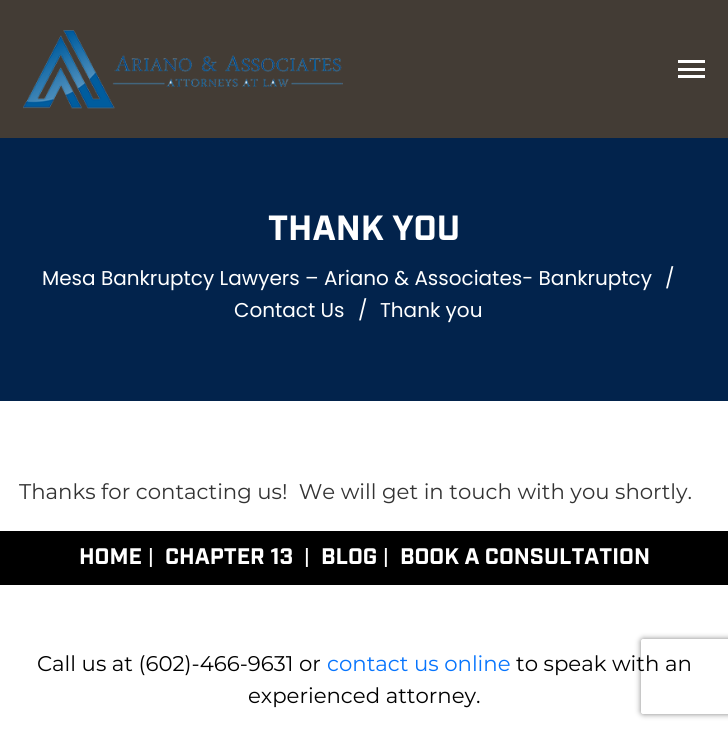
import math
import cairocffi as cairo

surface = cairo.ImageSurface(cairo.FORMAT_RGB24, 728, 731)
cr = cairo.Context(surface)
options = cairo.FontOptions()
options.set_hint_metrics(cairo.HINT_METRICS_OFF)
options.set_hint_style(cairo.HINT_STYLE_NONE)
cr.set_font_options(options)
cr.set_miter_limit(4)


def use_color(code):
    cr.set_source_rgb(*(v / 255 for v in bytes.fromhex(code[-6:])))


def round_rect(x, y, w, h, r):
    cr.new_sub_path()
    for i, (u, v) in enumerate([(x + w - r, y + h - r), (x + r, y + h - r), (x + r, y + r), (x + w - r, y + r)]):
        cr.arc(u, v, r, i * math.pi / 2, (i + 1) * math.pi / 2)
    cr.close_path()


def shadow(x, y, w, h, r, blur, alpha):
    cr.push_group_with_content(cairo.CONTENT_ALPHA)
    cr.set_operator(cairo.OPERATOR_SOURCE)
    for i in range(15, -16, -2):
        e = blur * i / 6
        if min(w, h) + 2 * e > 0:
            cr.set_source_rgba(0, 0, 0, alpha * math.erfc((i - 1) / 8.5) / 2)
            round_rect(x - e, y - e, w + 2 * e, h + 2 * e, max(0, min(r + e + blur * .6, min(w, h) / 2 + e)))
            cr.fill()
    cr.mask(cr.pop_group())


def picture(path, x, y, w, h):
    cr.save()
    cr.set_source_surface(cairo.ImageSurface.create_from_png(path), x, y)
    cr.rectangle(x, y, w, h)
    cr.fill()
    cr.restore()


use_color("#ffffff")
cr.paint()
use_color("#433c35")
cr.rectangle(0, 0, 728, 138)
cr.fill()
picture("img1.png", 23, 30, 320, 79)
use_color("#ffffff")
cr.rectangle(678, 60, 27, 3)
cr.fill()
cr.rectangle(678, 68, 27, 3)
cr.fill()
cr.rectangle(678, 75, 27, 3)
cr.fill()
use_color("#02234c")
cr.rectangle(0, 138, 728, 263)
cr.fill()
cr.select_font_face("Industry", cairo.FONT_SLANT_NORMAL, cairo.FONT_WEIGHT_BOLD)
cr.set_font_size(35)
use_color("#ffffff")
cr.move_to(268, 240)
cr.show_text("THANK YOU")
cr.select_font_face("Poppins")
cr.set_font_size(20)
cr.move_to(42, 285)
cr.show_text("Mesa Bankruptcy Lawyers – Ariano & Associates- Bankruptcy")
cr.move_to(665, 285)
cr.show_text("/")
cr.move_to(234, 317)
cr.show_text("Contact Us")
cr.move_to(358, 317)
cr.show_text("/")
cr.move_to(380, 317)
cr.show_text("Thank you")
cr.select_font_face("Montserrat")
cr.set_font_size(21.25)
use_color("#333333")
cr.move_to(19, 499)
cr.show_text("Thanks for contacting us!  We will get in touch with you shortly.")
use_color("#000000")
cr.rectangle(0, 531, 728, 54)
cr.fill()
cr.select_font_face("Industry", cairo.FONT_SLANT_NORMAL, cairo.FONT_WEIGHT_BOLD)
cr.set_font_size(22.5)
use_color("#ffffff")
cr.move_to(79, 564)
cr.show_text("HOME")
cr.select_font_face("Roboto", cairo.FONT_SLANT_NORMAL, cairo.FONT_WEIGHT_BOLD)
cr.move_to(148, 564)
cr.show_text("|")
cr.select_font_face("Industry", cairo.FONT_SLANT_NORMAL, cairo.FONT_WEIGHT_BOLD)
cr.move_to(165, 564)
cr.show_text("CHAPTER 13")
cr.select_font_face("Roboto", cairo.FONT_SLANT_NORMAL, cairo.FONT_WEIGHT_BOLD)
cr.move_to(304, 564)
cr.show_text("|")
cr.select_font_face("Industry", cairo.FONT_SLANT_NORMAL, cairo.FONT_WEIGHT_BOLD)
cr.move_to(321, 564)
cr.show_text("BLOG")
cr.select_font_face("Roboto", cairo.FONT_SLANT_NORMAL, cairo.FONT_WEIGHT_BOLD)
cr.move_to(383, 564)
cr.show_text("|")
cr.select_font_face("Industry", cairo.FONT_SLANT_NORMAL, cairo.FONT_WEIGHT_BOLD)
cr.move_to(400, 564)
cr.show_text("BOOK A CONSULTATION")
cr.select_font_face("Montserrat")
cr.set_font_size(21.25)
use_color("#000000")
cr.move_to(37, 671)
cr.show_text("Call us at (602)-466-9631 or")
use_color("#0674fd")
cr.move_to(327, 671)
cr.show_text("contact us online")
cr.save()
cr.set_fill_rule(cairo.FILL_RULE_EVEN_ODD)
cr.new_path()
cr.move_to(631, 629)
cr.line_to(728, 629)
cr.line_to(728, 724)
cr.line_to(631, 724)
cr.close_path()
cr.move_to(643.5, 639)
cr.line_to(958.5, 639)
cr.curve_to(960, 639, 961, 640, 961, 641.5)
cr.line_to(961, 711.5)
cr.curve_to(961, 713, 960, 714, 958.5, 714)
cr.line_to(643.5, 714)
cr.curve_to(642, 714, 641, 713, 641, 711.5)
cr.line_to(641, 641.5)
cr.curve_to(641, 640, 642, 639, 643.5, 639)
cr.close_path()
cr.clip()
use_color("#808080")
shadow(641, 639, 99, 75, 2.5, 3, 1)
cr.restore()
use_color("#000000")
cr.move_to(516, 671)
cr.show_text("to speak with an")
cr.move_to(248, 703)
cr.show_text("experienced attorney.")
surface.write_to_png("result.png")
